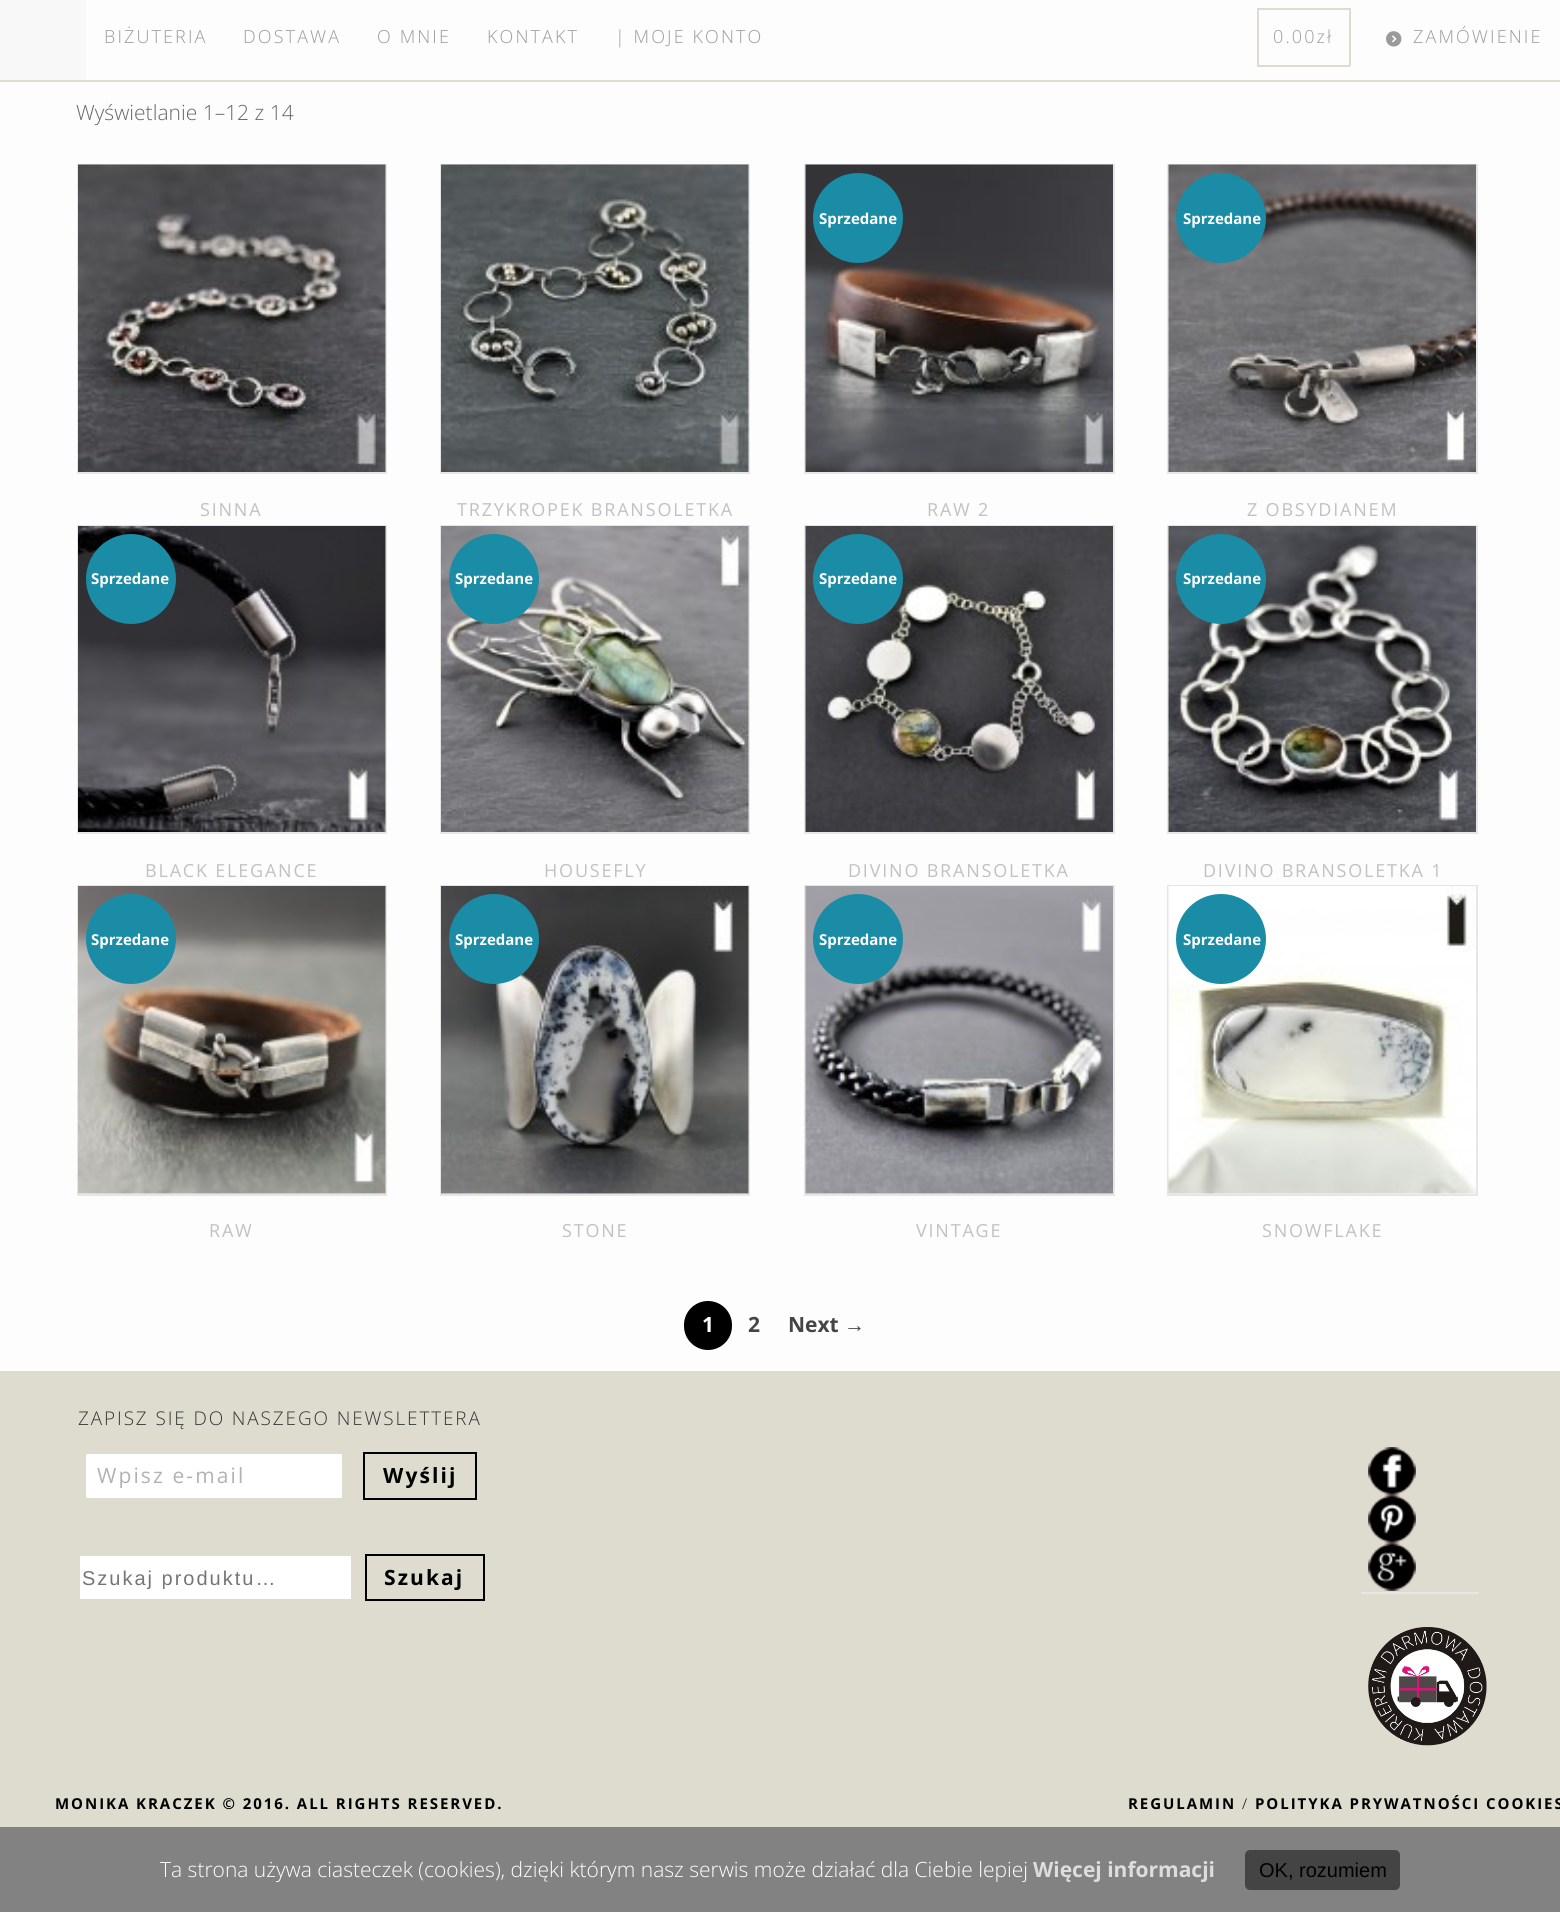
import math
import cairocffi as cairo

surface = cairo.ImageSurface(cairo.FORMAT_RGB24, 1560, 1912)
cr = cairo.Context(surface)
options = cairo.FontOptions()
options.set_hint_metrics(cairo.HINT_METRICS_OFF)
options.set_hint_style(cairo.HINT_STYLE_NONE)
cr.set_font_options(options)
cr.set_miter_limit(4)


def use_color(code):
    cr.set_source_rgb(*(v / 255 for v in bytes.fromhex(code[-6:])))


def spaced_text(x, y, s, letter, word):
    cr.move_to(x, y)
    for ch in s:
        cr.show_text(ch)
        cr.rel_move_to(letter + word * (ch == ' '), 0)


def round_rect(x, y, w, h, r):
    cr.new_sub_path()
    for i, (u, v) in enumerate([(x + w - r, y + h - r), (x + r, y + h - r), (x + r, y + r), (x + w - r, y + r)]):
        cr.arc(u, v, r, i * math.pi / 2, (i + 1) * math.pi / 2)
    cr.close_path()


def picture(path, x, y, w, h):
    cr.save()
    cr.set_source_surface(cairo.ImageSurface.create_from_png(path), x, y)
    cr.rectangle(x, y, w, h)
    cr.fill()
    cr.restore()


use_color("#fdfdfd")
cr.paint()
use_color("#dddcce")
cr.rectangle(0, 80, 1560, 2)
cr.fill()
use_color("#f8f8f8")
cr.rectangle(0, 0, 86, 80)
cr.fill()
cr.select_font_face("Open Sans Light")
cr.set_font_size(18)
use_color("#9a9a9a")
spaced_text(104, 43, "BIŻUTERIA", 2.1, 0)
spaced_text(243, 43, "DOSTAWA", 2.1, 0)
spaced_text(377, 43, "O MNIE", 2.1, 0)
spaced_text(487, 43, "KONTAKT", 2.1, 0)
spaced_text(615, 43, "| MOJE KONTO", 2.1, 0)
spaced_text(1273, 43, "0.00zł", 2.1, 0)
use_color("#dddcce")
cr.rectangle(1257, 8, 93, 2)
cr.fill()
cr.rectangle(1257, 65, 60, 2)
cr.fill()
cr.rectangle(1257, 8, 2, 58)
cr.fill()
cr.rectangle(1349, 8, 2, 58)
cr.fill()
cr.rectangle(1317, 65, 33, 2)
cr.fill()
picture("img1.png", 1386, 31, 16, 16)
use_color("#9a9a9a")
spaced_text(1413, 43, "ZAMÓWIENIE", 2.1, 0)
cr.set_font_size(21)
use_color("#676767")
cr.move_to(76, 120)
cr.show_text("Wyświetlanie 1–12 z 14")
cr.rectangle(78, 165, 308, 308)
use_color("#e6e6e6")
cr.stroke()
picture("img2.png", 78, 164, 308, 308)
cr.select_font_face("Open Sans")
cr.set_font_size(18)
use_color("#c1c1c1")
spaced_text(200, 516, "SINNA", 1.8, 0)
cr.rectangle(441, 165, 308, 308)
use_color("#e6e6e6")
cr.stroke()
picture("img3.png", 441, 164, 308, 308)
use_color("#c1c1c1")
spaced_text(457, 516, "TRZYKROPEK BRANSOLETKA", 1.8, 0)
cr.rectangle(805, 165, 309, 308)
use_color("#e6e6e6")
cr.stroke()
picture("img4.png", 805, 164, 308, 308)
use_color("#1a8ca5")
cr.arc(858, 218, 44, 0, 2 * math.pi)
cr.fill_preserve()
cr.stroke()
cr.select_font_face("Open Sans", cairo.FONT_SLANT_NORMAL, cairo.FONT_WEIGHT_BOLD)
cr.set_font_size(15)
use_color("#ffffff")
cr.move_to(819, 224)
cr.show_text("Sprzedane")
cr.select_font_face("Open Sans")
cr.set_font_size(18)
use_color("#c1c1c1")
spaced_text(927, 516, "RAW 2", 1.8, 0)
cr.rectangle(1168, 165, 309, 308)
use_color("#e6e6e6")
cr.stroke()
picture("img5.png", 1168, 164, 308, 308)
use_color("#1a8ca5")
cr.arc(1221, 218, 44, 0, 2 * math.pi)
cr.fill_preserve()
cr.stroke()
cr.select_font_face("Open Sans", cairo.FONT_SLANT_NORMAL, cairo.FONT_WEIGHT_BOLD)
cr.set_font_size(15)
use_color("#ffffff")
cr.move_to(1183, 224)
cr.show_text("Sprzedane")
cr.select_font_face("Open Sans")
cr.set_font_size(18)
use_color("#c1c1c1")
spaced_text(1247, 516, "Z OBSYDIANEM", 1.8, 0)
cr.rectangle(78, 526, 308, 307)
use_color("#e6e6e6")
cr.stroke()
picture("img6.png", 78, 526, 308, 306)
use_color("#1a8ca5")
cr.arc(131, 579, 44, 0, 2 * math.pi)
cr.fill_preserve()
cr.stroke()
cr.select_font_face("Open Sans", cairo.FONT_SLANT_NORMAL, cairo.FONT_WEIGHT_BOLD)
cr.set_font_size(15)
use_color("#ffffff")
cr.move_to(91, 584)
cr.show_text("Sprzedane")
cr.select_font_face("Open Sans")
cr.set_font_size(18)
use_color("#c1c1c1")
spaced_text(145, 877, "BLACK ELEGANCE", 1.8, 0)
cr.rectangle(441, 526, 308, 307)
use_color("#e6e6e6")
cr.stroke()
picture("img7.png", 441, 526, 308, 306)
use_color("#1a8ca5")
cr.arc(494, 579, 44, 0, 2 * math.pi)
cr.fill_preserve()
cr.stroke()
cr.select_font_face("Open Sans", cairo.FONT_SLANT_NORMAL, cairo.FONT_WEIGHT_BOLD)
cr.set_font_size(15)
use_color("#ffffff")
cr.move_to(455, 584)
cr.show_text("Sprzedane")
cr.select_font_face("Open Sans")
cr.set_font_size(18)
use_color("#c1c1c1")
spaced_text(544, 877, "HOUSEFLY", 1.8, 0)
cr.rectangle(805, 526, 309, 307)
use_color("#e6e6e6")
cr.stroke()
picture("img8.png", 805, 526, 308, 306)
use_color("#1a8ca5")
cr.arc(858, 579, 44, 0, 2 * math.pi)
cr.fill_preserve()
cr.stroke()
cr.select_font_face("Open Sans", cairo.FONT_SLANT_NORMAL, cairo.FONT_WEIGHT_BOLD)
cr.set_font_size(15)
use_color("#ffffff")
cr.move_to(819, 584)
cr.show_text("Sprzedane")
cr.select_font_face("Open Sans")
cr.set_font_size(18)
use_color("#c1c1c1")
spaced_text(848, 877, "DIVINO BRANSOLETKA", 1.8, 0)
cr.rectangle(1168, 526, 309, 307)
use_color("#e6e6e6")
cr.stroke()
picture("img9.png", 1168, 526, 308, 306)
use_color("#1a8ca5")
cr.arc(1221, 579, 44, 0, 2 * math.pi)
cr.fill_preserve()
cr.stroke()
cr.select_font_face("Open Sans", cairo.FONT_SLANT_NORMAL, cairo.FONT_WEIGHT_BOLD)
cr.set_font_size(15)
use_color("#ffffff")
cr.move_to(1183, 584)
cr.show_text("Sprzedane")
cr.select_font_face("Open Sans")
cr.set_font_size(18)
use_color("#c1c1c1")
spaced_text(1203, 877, "DIVINO BRANSOLETKA 1", 1.8, 0)
cr.rectangle(78, 886, 308, 309)
use_color("#e6e6e6")
cr.stroke()
picture("img10.png", 78, 886, 308, 308)
use_color("#1a8ca5")
cr.arc(131, 939, 44, 0, 2 * math.pi)
cr.fill_preserve()
cr.stroke()
cr.select_font_face("Open Sans", cairo.FONT_SLANT_NORMAL, cairo.FONT_WEIGHT_BOLD)
cr.set_font_size(15)
use_color("#ffffff")
cr.move_to(91, 945)
cr.show_text("Sprzedane")
cr.select_font_face("Open Sans")
cr.set_font_size(18)
use_color("#c1c1c1")
spaced_text(209, 1237, "RAW", 1.8, 0)
cr.rectangle(441, 886, 308, 309)
use_color("#e6e6e6")
cr.stroke()
picture("img11.png", 441, 886, 308, 308)
use_color("#1a8ca5")
cr.arc(494, 939, 44, 0, 2 * math.pi)
cr.fill_preserve()
cr.stroke()
cr.select_font_face("Open Sans", cairo.FONT_SLANT_NORMAL, cairo.FONT_WEIGHT_BOLD)
cr.set_font_size(15)
use_color("#ffffff")
cr.move_to(455, 945)
cr.show_text("Sprzedane")
cr.select_font_face("Open Sans")
cr.set_font_size(18)
use_color("#c1c1c1")
spaced_text(562, 1237, "STONE", 1.8, 0)
cr.rectangle(805, 886, 309, 309)
use_color("#e6e6e6")
cr.stroke()
picture("img12.png", 805, 886, 308, 308)
use_color("#1a8ca5")
cr.arc(858, 939, 44, 0, 2 * math.pi)
cr.fill_preserve()
cr.stroke()
cr.select_font_face("Open Sans", cairo.FONT_SLANT_NORMAL, cairo.FONT_WEIGHT_BOLD)
cr.set_font_size(15)
use_color("#ffffff")
cr.move_to(819, 945)
cr.show_text("Sprzedane")
cr.select_font_face("Open Sans")
cr.set_font_size(18)
use_color("#c1c1c1")
spaced_text(916, 1237, "VINTAGE", 1.8, 0)
cr.rectangle(1168, 886, 309, 309)
use_color("#e6e6e6")
cr.stroke()
picture("img13.png", 1168, 886, 308, 308)
use_color("#1a8ca5")
cr.arc(1221, 939, 44, 0, 2 * math.pi)
cr.fill_preserve()
cr.stroke()
cr.select_font_face("Open Sans", cairo.FONT_SLANT_NORMAL, cairo.FONT_WEIGHT_BOLD)
cr.set_font_size(15)
use_color("#ffffff")
cr.move_to(1183, 945)
cr.show_text("Sprzedane")
cr.select_font_face("Open Sans")
cr.set_font_size(18)
use_color("#c1c1c1")
spaced_text(1262, 1237, "SNOWFLAKE", 1.8, 0)
use_color("#000000")
round_rect(684, 1301, 48, 49, 24)
cr.fill()
cr.select_font_face("Open Sans", cairo.FONT_SLANT_NORMAL, cairo.FONT_WEIGHT_BOLD)
cr.set_font_size(21)
use_color("#ffffff")
cr.move_to(702, 1332)
cr.show_text("1")
use_color("#454545")
cr.move_to(748, 1332)
cr.show_text("2")
cr.move_to(788, 1332)
cr.show_text("Next")
cr.select_font_face("Liberation Sans", cairo.FONT_SLANT_NORMAL, cairo.FONT_WEIGHT_BOLD)
cr.move_to(844, 1332)
cr.show_text("→")
use_color("#dddcce")
cr.rectangle(0, 1371, 1560, 456)
cr.fill()
cr.select_font_face("Open Sans Light")
cr.set_font_size(18.9)
use_color("#343434")
spaced_text(78, 1425, "ZAPISZ SIĘ DO NASZEGO NEWSLETTERA", 1.9, 0)
use_color("#ffffff")
round_rect(85, 1453, 258, 46, 2)
cr.fill_preserve()
use_color("#dddcce")
cr.stroke()
cr.select_font_face("Open Sans")
cr.set_font_size(21)
use_color("#b2b2b2")
spaced_text(97, 1483, "Wpisz e-mail", 2.1, 0)
cr.rectangle(364, 1453, 112, 46)
use_color("#000000")
cr.stroke()
cr.select_font_face("Open Sans", cairo.FONT_SLANT_NORMAL, cairo.FONT_WEIGHT_BOLD)
spaced_text(383, 1483, "Wyślij", 2.1, 0)
use_color("#ffffff")
cr.rectangle(80, 1556, 271, 43)
cr.fill()
cr.save()
cr.rectangle(83, 1566, 259, 23)
cr.clip()
cr.select_font_face("Liberation Sans")
cr.set_font_size(20)
use_color("#757575")
spaced_text(82, 1585, "Szukaj produktu…", 2, 0)
cr.restore()
cr.rectangle(366, 1555, 118, 45)
use_color("#000000")
cr.stroke()
spaced_text(384, 1585, "Szukaj", 2.1, 0)
picture("img14.png", 1368, 1447, 48, 48)
picture("img15.png", 1368, 1495, 48, 48)
picture("img16.png", 1368, 1543, 48, 48)
use_color("#e6e6e6")
cr.rectangle(1361, 1592, 118, 2)
cr.fill()
picture("img17.png", 1368, 1627, 119, 119)
cr.set_font_size(15)
use_color("#000000")
spaced_text(55, 1809, "MONIKA KRACZEK © 2016. ALL RIGHTS RESERVED.", 1.95, 0)
spaced_text(1128, 1809, "REGULAMIN", 1.95, 0)
cr.select_font_face("Open Sans Light")
spaced_text(1242, 1809, "/", 1.95, 0)
cr.select_font_face("Open Sans", cairo.FONT_SLANT_NORMAL, cairo.FONT_WEIGHT_BOLD)
spaced_text(1255, 1809, "POLITYKA PRYWATNOŚCI COOKIES", 1.95, 0)
use_color("#828282")
cr.rectangle(0, 1827, 1560, 85)
cr.fill()
cr.select_font_face("Open Sans Light")
cr.set_font_size(21)
use_color("#ffffff")
cr.move_to(160, 1877)
cr.show_text("Ta strona używa ciasteczek (cookies), dzięki którym nasz serwis może działać dla Ciebie lepiej")
cr.select_font_face("Open Sans", cairo.FONT_SLANT_NORMAL, cairo.FONT_WEIGHT_BOLD)
use_color("#dddddd")
cr.move_to(1033, 1877)
cr.show_text("Więcej informacji")
use_color("#444444")
round_rect(1245, 1850, 155, 40, 5)
cr.fill()
cr.select_font_face("Liberation Sans")
cr.set_font_size(20)
use_color("#000000")
cr.move_to(1259, 1877)
cr.show_text("OK, rozumiem")
surface.write_to_png("result.png")
